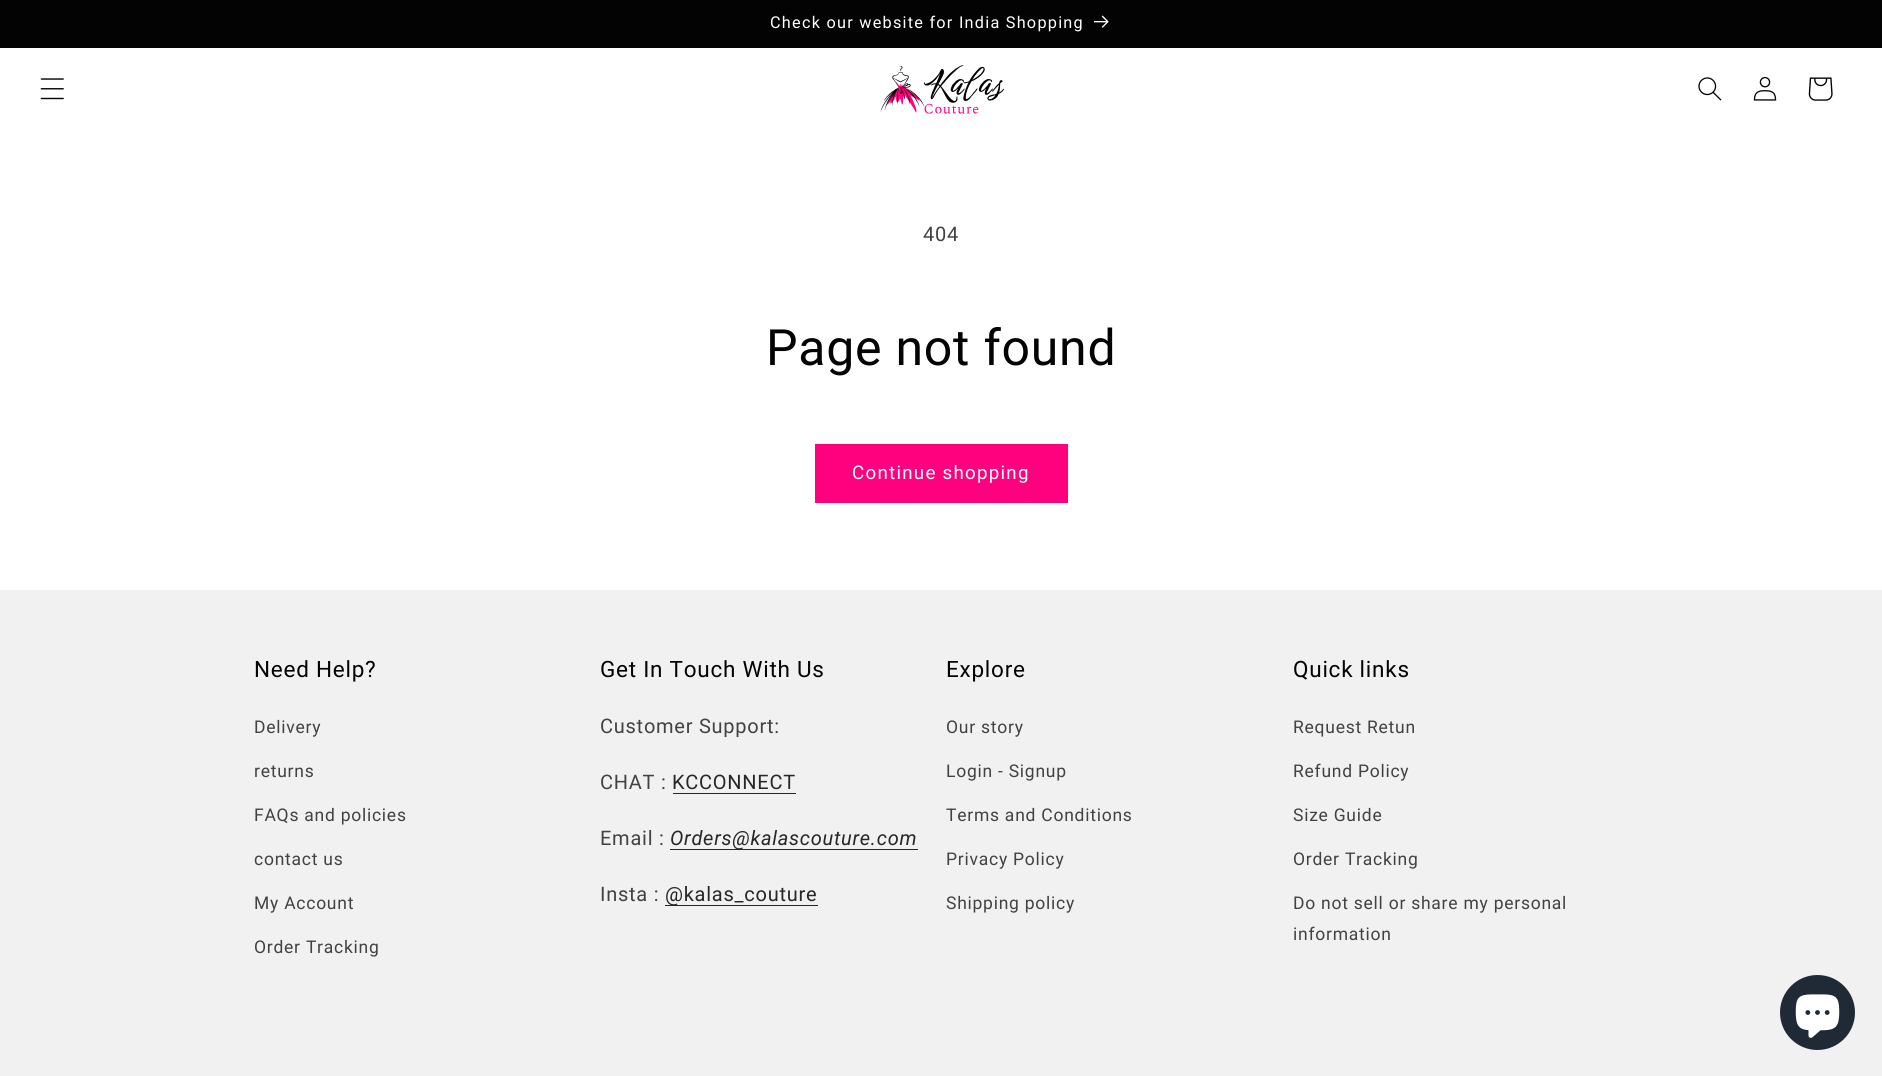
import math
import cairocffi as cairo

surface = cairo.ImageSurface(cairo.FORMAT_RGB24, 1882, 1076)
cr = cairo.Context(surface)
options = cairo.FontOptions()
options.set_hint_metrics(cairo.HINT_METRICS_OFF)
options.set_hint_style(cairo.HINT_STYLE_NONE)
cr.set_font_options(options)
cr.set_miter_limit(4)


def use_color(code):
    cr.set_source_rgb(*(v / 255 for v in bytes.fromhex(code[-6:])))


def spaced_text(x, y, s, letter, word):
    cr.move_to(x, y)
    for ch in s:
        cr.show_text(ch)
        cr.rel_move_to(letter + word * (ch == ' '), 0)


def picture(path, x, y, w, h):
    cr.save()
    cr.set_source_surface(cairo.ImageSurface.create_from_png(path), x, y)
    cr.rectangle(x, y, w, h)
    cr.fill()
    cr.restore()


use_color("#ffffff")
cr.paint()
use_color("#030303")
cr.rectangle(0, 0, 1882, 48)
cr.fill()
cr.select_font_face("Roboto")
cr.set_font_size(16.25)
use_color("#ffffff")
spaced_text(770, 28, "Check our website for India Shopping", 1.25, 0)
picture("img1.png", 1094, 15, 15, 13)
picture("img2.png", 40, 78, 24, 22)
picture("img3.png", 880, 65, 124, 49)
picture("img4.png", 1698, 77, 24, 24)
picture("img5.png", 1753, 76, 24, 25)
picture("img6.png", 1808, 77, 25, 24)
cr.set_font_size(20)
use_color("#424242")
spaced_text(923, 241, "404", 0.75, 0)
cr.set_font_size(50)
use_color("#030303")
spaced_text(766, 365, "Page not found", 0.75, 0)
use_color("#ff007f")
cr.rectangle(815, 444, 253, 59)
cr.fill()
cr.set_font_size(18.75)
use_color("#ffffff")
spaced_text(852, 479, "Continue shopping", 1.25, 0)
use_color("#f1f1f1")
cr.rectangle(0, 590, 1882, 486)
cr.fill()
cr.set_font_size(22.5)
use_color("#030303")
spaced_text(254, 677, "Need Help?", 0.75, 0)
cr.set_font_size(17.5)
use_color("#424242")
spaced_text(254, 733, "Delivery", 0.75, 0)
spaced_text(254, 777, "returns", 0.75, 0)
spaced_text(254, 821, "FAQs and policies", 0.75, 0)
spaced_text(254, 865, "contact us", 0.75, 0)
spaced_text(254, 909, "My Account", 0.75, 0)
spaced_text(254, 953, "Order Tracking", 0.75, 0)
cr.set_font_size(22.5)
use_color("#030303")
spaced_text(600, 677, "Get In Touch With Us", 0.75, 0)
cr.set_font_size(20)
use_color("#424242")
spaced_text(600, 733, "Customer Support:", 0.75, 0)
spaced_text(600, 789, "CHAT :", 0.75, 0)
use_color("#272727")
spaced_text(672, 789, "KCCONNECT", 0.75, 0)
cr.rectangle(673, 793, 123, 1)
cr.fill()
use_color("#424242")
spaced_text(600, 845, "Email :", 0.75, 0)
use_color("#272727")
cr.rectangle(670, 849, 248, 1)
cr.fill()
cr.select_font_face("Roboto", cairo.FONT_SLANT_ITALIC)
spaced_text(670, 845, "Orders@kalascouture.com", 0.75, 0)
cr.select_font_face("Roboto")
use_color("#424242")
spaced_text(600, 901, "Insta :", 0.75, 0)
use_color("#272727")
cr.rectangle(665, 905, 153, 1)
cr.fill()
spaced_text(665, 901, "@kalas_couture", 0.75, 0)
cr.set_font_size(22.5)
use_color("#030303")
spaced_text(946, 677, "Explore", 0.75, 0)
cr.set_font_size(17.5)
use_color("#424242")
spaced_text(946, 733, "Our story", 0.75, 0)
spaced_text(946, 777, "Login - Signup", 0.75, 0)
spaced_text(946, 821, "Terms and Conditions", 0.75, 0)
spaced_text(946, 865, "Privacy Policy", 0.75, 0)
spaced_text(946, 909, "Shipping policy", 0.75, 0)
cr.set_font_size(22.5)
use_color("#030303")
spaced_text(1293, 677, "Quick links", 0.75, 0)
cr.set_font_size(17.5)
use_color("#424242")
spaced_text(1293, 733, "Request Retun", 0.75, 0)
spaced_text(1293, 777, "Refund Policy", 0.75, 0)
spaced_text(1293, 821, "Size Guide", 0.75, 0)
spaced_text(1293, 865, "Order Tracking", 0.75, 0)
spaced_text(1293, 909, "Do not sell or share my personal", 0.75, 0)
spaced_text(1293, 940, "information", 0.75, 0)
use_color("#202a36")
cr.new_path()
cr.arc(1817.5, 1012.5, 37.5, 0, 2 * math.pi)
cr.fill()
picture("img7.png", 1795, 994, 45, 44)
surface.write_to_png("result.png")
